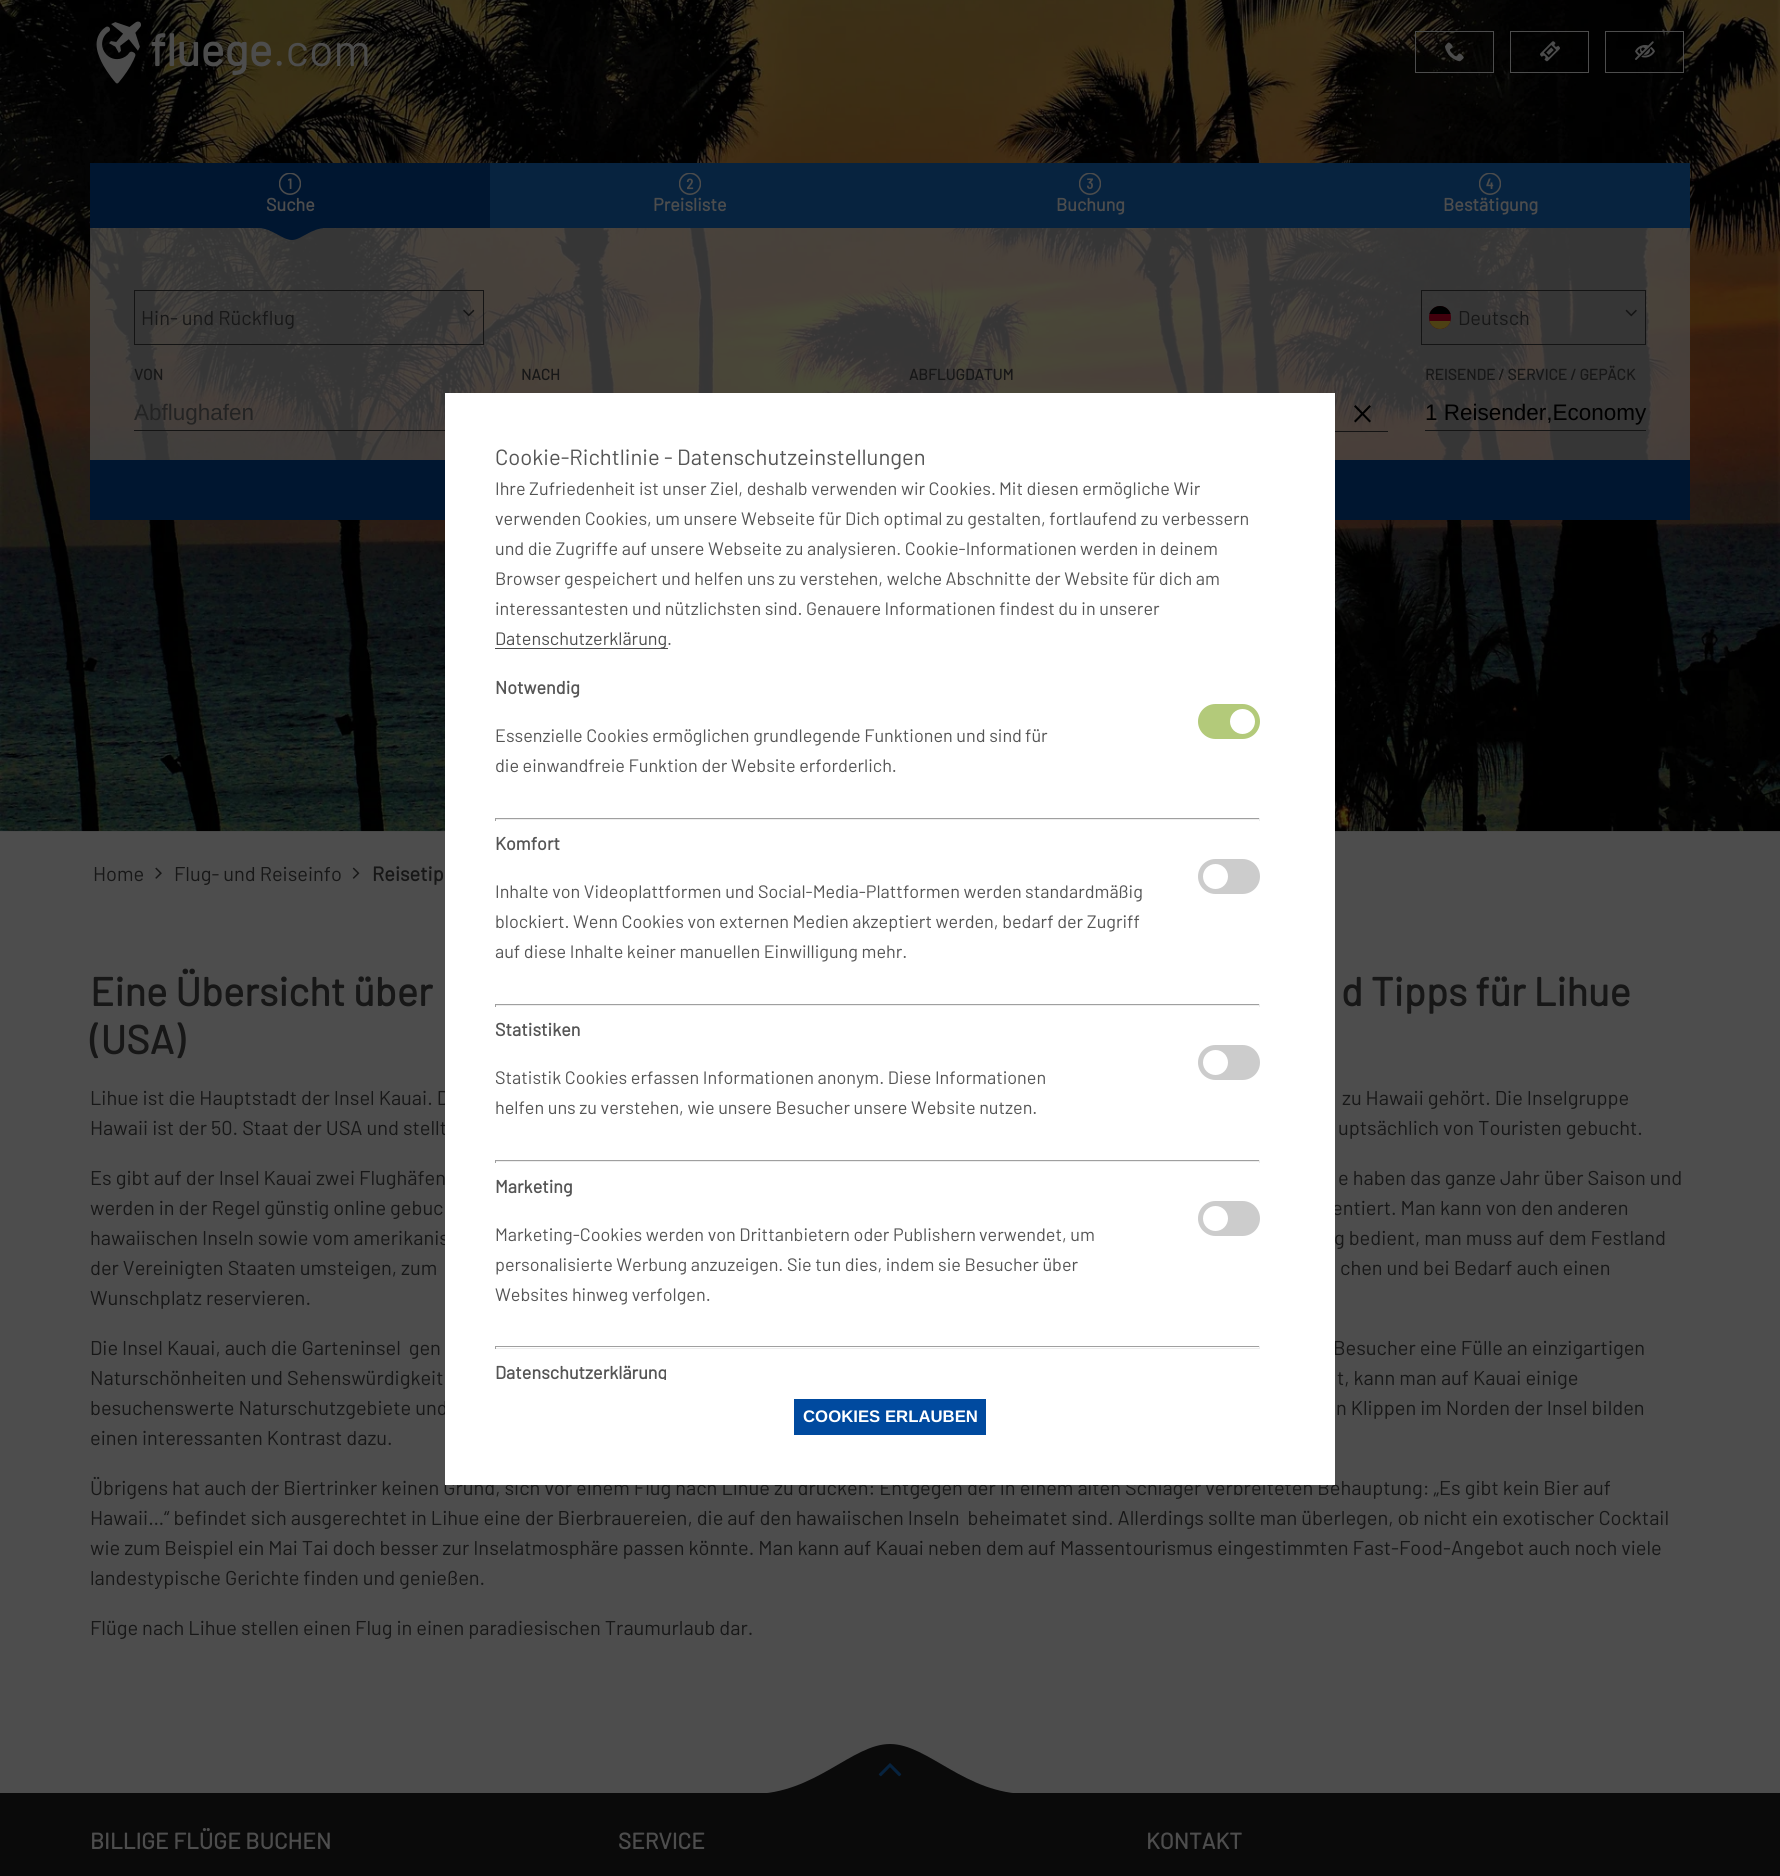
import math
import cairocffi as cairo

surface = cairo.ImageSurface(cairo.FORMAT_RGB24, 1780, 1876)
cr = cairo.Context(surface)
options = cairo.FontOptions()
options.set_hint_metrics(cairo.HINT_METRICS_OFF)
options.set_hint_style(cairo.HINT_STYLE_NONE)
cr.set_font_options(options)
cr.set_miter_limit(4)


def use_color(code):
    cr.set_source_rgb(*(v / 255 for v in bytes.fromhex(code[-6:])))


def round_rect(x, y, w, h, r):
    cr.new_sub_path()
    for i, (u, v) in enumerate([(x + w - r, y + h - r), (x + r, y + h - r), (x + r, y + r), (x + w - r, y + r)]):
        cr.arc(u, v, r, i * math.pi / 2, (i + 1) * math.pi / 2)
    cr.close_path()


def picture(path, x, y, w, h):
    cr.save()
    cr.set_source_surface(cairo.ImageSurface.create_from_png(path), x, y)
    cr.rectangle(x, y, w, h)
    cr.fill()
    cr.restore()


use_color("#4d4d4d")
cr.paint()
picture("img5.png", 0, 0, 1780, 832)
picture("img1.png", 96, 21, 45, 63)
cr.select_font_face("Barlow", cairo.FONT_SLANT_NORMAL, cairo.FONT_WEIGHT_BOLD)
cr.set_font_size(45)
use_color("#4d4d4d")
cr.move_to(150, 66)
cr.show_text("fluege")
cr.select_font_face("Barlow")
cr.move_to(273, 66)
cr.show_text(".com")
cr.rectangle(1415.5, 31.5, 78, 41)
cr.set_line_width(1)
cr.stroke()
picture("img2.png", 1445, 42, 19, 20)
cr.rectangle(1510.5, 31.5, 78, 41)
cr.stroke()
picture("img3.png", 1540, 41, 20, 21)
cr.rectangle(1605.5, 31.5, 78, 41)
cr.stroke()
picture("img4.png", 1635, 41, 20, 19)
cr.set_source_rgba(0.302, 0.302, 0.302, 0.7)
cr.rectangle(90, 228, 1600, 232)
cr.fill()
use_color("#001630")
cr.rectangle(90, 163, 400, 65)
cr.fill()
picture("img6.png", 279, 173, 22, 22)
cr.select_font_face("Barlow", cairo.FONT_SLANT_NORMAL, cairo.FONT_WEIGHT_BOLD)
cr.set_font_size(18)
use_color("#4d4d4d")
cr.move_to(266, 211)
cr.show_text("Suche")
cr.save()
cr.rectangle(258, 225, 65, 15)
cr.clip()
use_color("#001630")
cr.new_path()
cr.move_to(258, 225)
cr.line_to(326, 225)
cr.line_to(326, 228)
cr.curve_to(311, 228, 301, 240, 292, 240)
cr.curve_to(282, 240, 272, 228, 258, 228)
cr.close_path()
cr.fill()
cr.restore()
use_color("#07233f")
cr.rectangle(490, 163, 1200, 65)
cr.fill()
picture("img7.png", 679, 173, 22, 22)
use_color("#4d4d4d")
cr.move_to(653, 211)
cr.show_text("Preisliste")
picture("img8.png", 1079, 173, 22, 22)
cr.move_to(1056, 211)
cr.show_text("Buchung")
picture("img9.png", 1479, 173, 22, 22)
cr.move_to(1443, 211)
cr.show_text("Bestätigung")
cr.rectangle(134.5, 290.5, 349, 54)
use_color("#141414")
cr.stroke()
cr.select_font_face("Barlow")
cr.set_font_size(20)
use_color("#171717")
cr.move_to(141, 325)
cr.show_text("Hin- und Rückflug")
picture("img10.png", 463, 309, 12, 8)
cr.rectangle(1421.5, 290.5, 224, 54)
use_color("#141414")
cr.stroke()
use_color("#41000c")
round_rect(1429, 306, 22, 23, 11)
cr.fill()
cr.save()
round_rect(1429, 306, 22, 23, 11)
cr.clip()
use_color("#000000")
cr.rectangle(1429, 306, 22, 8)
cr.fill()
use_color("#4d4114")
cr.rectangle(1429, 321, 22, 8)
cr.fill()
cr.restore()
use_color("#171717")
cr.move_to(1458, 325)
cr.show_text("Deutsch")
picture("img11.png", 1625, 309, 12, 8)
cr.select_font_face("Barlow", cairo.FONT_SLANT_NORMAL, cairo.FONT_WEIGHT_BOLD)
cr.set_font_size(15.4)
cr.move_to(134, 380)
cr.show_text("VON")
use_color("#141414")
cr.rectangle(134, 430, 311, 1)
cr.fill()
cr.select_font_face("Liberation Sans")
cr.set_font_size(22.5)
use_color("#232323")
cr.move_to(134, 420)
cr.show_text("Abflughafen")
cr.select_font_face("Barlow", cairo.FONT_SLANT_NORMAL, cairo.FONT_WEIGHT_BOLD)
cr.set_font_size(15.4)
use_color("#171717")
cr.move_to(521, 380)
cr.show_text("NACH")
cr.move_to(909, 380)
cr.show_text("ABFLUGDATUM")
cr.new_path()
cr.move_to(1355.5, 406.5)
cr.line_to(1369.5, 421)
cr.move_to(1369.5, 406.5)
cr.line_to(1355.5, 421)
use_color("#000000")
cr.set_line_width(2.1)
cr.set_line_cap(cairo.LINE_CAP_SQUARE)
cr.stroke()
use_color("#141414")
cr.rectangle(1335, 431, 53, 1)
cr.fill()
use_color("#171717")
cr.move_to(1425, 380)
cr.show_text("REISENDE / SERVICE / GEPÄCK")
use_color("#141414")
cr.rectangle(1425, 430, 221, 1)
cr.fill()
cr.select_font_face("Liberation Sans")
cr.set_font_size(22.5)
use_color("#000000")
cr.move_to(1425, 420)
cr.show_text("1 Reisender,Economy")
use_color("#001630")
cr.rectangle(90, 460, 1600, 60)
cr.fill()
cr.select_font_face("Barlow")
cr.set_font_size(20)
use_color("#171717")
cr.move_to(93, 881)
cr.show_text("Home")
picture("img12.png", 155, 867, 7, 12)
cr.move_to(174, 881)
cr.show_text("Flug- und Reiseinfo")
picture("img13.png", 352, 867, 8, 12)
cr.select_font_face("Barlow", cairo.FONT_SLANT_NORMAL, cairo.FONT_WEIGHT_BOLD)
cr.move_to(372, 881)
cr.show_text("Reisetip")
cr.set_font_size(40)
cr.move_to(90, 1006)
cr.show_text("Eine Übersicht über")
cr.move_to(1341, 1006)
cr.show_text("d Tipps für Lihue")
cr.move_to(90, 1054)
cr.show_text("(USA)")
cr.select_font_face("Barlow")
cr.set_font_size(20)
cr.move_to(90, 1105)
cr.show_text("Lihue ist die Hauptstadt der Insel Kauai. D")
cr.move_to(1342, 1105)
cr.show_text("zu Hawaii gehört. Die Inselgruppe")
cr.move_to(90, 1135)
cr.show_text("Hawaii ist der 50. Staat der USA und stellt")
cr.move_to(1338, 1135)
cr.show_text("uptsächlich von Touristen gebucht.")
cr.move_to(90, 1185)
cr.show_text("Es gibt auf der Insel Kauai zwei Flughäfen")
cr.move_to(1338, 1185)
cr.show_text("e haben das ganze Jahr über Saison und")
cr.move_to(90, 1215)
cr.show_text("werden in der Regel günstig online gebuc")
cr.move_to(1332, 1215)
cr.show_text("entiert. Man kann von den anderen")
cr.move_to(90, 1245)
cr.show_text("hawaiischen Inseln sowie vom amerikanis")
cr.move_to(1334, 1245)
cr.show_text("g bedient, man muss auf dem Festland")
cr.move_to(90, 1275)
cr.show_text("der Vereinigten Staaten umsteigen, zum")
cr.move_to(1340, 1275)
cr.show_text("chen und bei Bedarf auch einen")
cr.move_to(90, 1305)
cr.show_text("Wunschplatz reservieren.")
cr.move_to(90, 1355)
cr.show_text("Die Insel Kauai, auch die Garteninsel  gen")
cr.move_to(1333, 1355)
cr.show_text("Besucher eine Fülle an einzigartigen")
cr.move_to(90, 1385)
cr.show_text("Naturschönheiten und Sehenswürdigkeit")
cr.move_to(1337, 1385)
cr.show_text("t, kann man auf Kauai einige")
cr.move_to(90, 1415)
cr.show_text("besuchenswerte Naturschutzgebiete und")
cr.move_to(1336, 1415)
cr.show_text("n Klippen im Norden der Insel bilden")
cr.move_to(90, 1445)
cr.show_text("einen interessanten Kontrast dazu.")
cr.move_to(90, 1495)
cr.show_text("Übrigens hat auch der Biertrinker keinen Grund, sich vor einem Flug nach Lihue zu drücken: Entgegen der in einem alten Schlager verbreiteten Behauptung: „Es gibt kein Bier auf")
cr.move_to(90, 1525)
cr.show_text("Hawaii…“ befindet sich ausgerechtet in Lihue eine der Bierbrauereien, die auf den hawaiischen Inseln  beheimatet sind. Allerdings sollte man überlegen, ob nicht ein exotischer Cocktail")
cr.move_to(90, 1555)
cr.show_text("wie zum Beispiel ein Mai Tai doch besser zur Inselatmosphäre passen könnte. Man kann auf Kauai neben dem auf Massentourismus eingestimmten Fast-Food-Angebot auch noch viele")
cr.move_to(90, 1585)
cr.show_text("landestypische Gerichte finden und genießen.")
cr.move_to(90, 1635)
cr.show_text("Flüge nach Lihue stellen einen Flug in einen paradiesischen Traumurlaub dar.")
use_color("#ffffff")
cr.rectangle(445, 393, 890, 1092)
cr.fill()
cr.set_font_size(22)
use_color("#555555")
cr.move_to(495, 465)
cr.show_text("Cookie-Richtlinie - Datenschutzeinstellungen")
cr.set_font_size(18)
cr.move_to(495, 495)
cr.show_text("Ihre Zufriedenheit ist unser Ziel, deshalb verwenden wir Cookies.")
cr.move_to(999, 495)
cr.show_text("Mit diesen ermögliche Wir")
cr.move_to(495, 525)
cr.show_text("verwenden Cookies, um unsere Webseite für Dich optimal zu gestalten, fortlaufend zu verbessern")
cr.move_to(495, 555)
cr.show_text("und die Zugriffe auf unsere Webseite zu analysieren. Cookie-Informationen")
cr.move_to(1080, 555)
cr.show_text("werden in deinem")
cr.move_to(495, 585)
cr.show_text("Browser gespeichert und helfen uns zu verstehen, welche Abschnitte der Website für dich am")
cr.move_to(495, 615)
cr.show_text("interessantesten und nützlichsten sind. Genauere Informationen findest du in unserer")
use_color("#4c4c4c")
cr.rectangle(495, 648, 173, 1)
cr.fill()
use_color("#4d4d4d")
cr.move_to(495, 645)
cr.show_text("Datenschutzerklärung")
use_color("#555555")
cr.move_to(667, 645)
cr.show_text(".")
cr.select_font_face("Barlow", cairo.FONT_SLANT_NORMAL, cairo.FONT_WEIGHT_BOLD)
cr.move_to(495, 694)
cr.show_text("Notwendig")
use_color("#b3ca7a")
round_rect(1198, 704, 62, 35, 17.5)
cr.fill()
use_color("#ffffff")
cr.arc(1242.5, 721.5, 12.5, 0, 2 * math.pi)
cr.fill()
cr.select_font_face("Barlow")
use_color("#555555")
cr.move_to(495, 742)
cr.show_text("Essenzielle Cookies ermöglichen grundlegende Funktionen und sind")
cr.move_to(1025, 742)
cr.show_text("für")
cr.move_to(495, 772)
cr.show_text("die einwandfreie Funktion der Website erforderlich.")
use_color("#9f9f9f")
cr.rectangle(495, 818, 765, 1)
cr.fill()
use_color("#eeeeee")
cr.rectangle(1259, 818, 1, 3)
cr.fill()
cr.rectangle(495, 819, 765, 1)
cr.fill()
use_color("#9f9f9f")
cr.rectangle(495, 818, 1, 3)
cr.fill()
cr.select_font_face("Barlow", cairo.FONT_SLANT_NORMAL, cairo.FONT_WEIGHT_BOLD)
use_color("#555555")
cr.move_to(495, 850)
cr.show_text("Komfort")
use_color("#cccccc")
round_rect(1198, 859, 62, 35, 17.5)
cr.fill()
use_color("#ffffff")
cr.arc(1215.5, 876.5, 12.5, 0, 2 * math.pi)
cr.fill()
cr.select_font_face("Barlow")
use_color("#555555")
cr.move_to(495, 898)
cr.show_text("Inhalte von Videoplattformen und Social-Media-Plattformen werden")
cr.move_to(1025, 898)
cr.show_text("standardmäßig")
cr.move_to(495, 928)
cr.show_text("blockiert. Wenn Cookies von externen Medien akzeptiert werden, bedarf der Zugriff")
cr.move_to(495, 958)
cr.show_text("auf diese Inhalte keiner manuellen Einwilligung mehr.")
use_color("#9f9f9f")
cr.rectangle(495, 1004, 765, 1)
cr.fill()
use_color("#eeeeee")
cr.rectangle(1259, 1004, 1, 3)
cr.fill()
cr.rectangle(495, 1005, 765, 1)
cr.fill()
use_color("#9f9f9f")
cr.rectangle(495, 1004, 1, 3)
cr.fill()
cr.select_font_face("Barlow", cairo.FONT_SLANT_NORMAL, cairo.FONT_WEIGHT_BOLD)
use_color("#555555")
cr.move_to(495, 1036)
cr.show_text("Statistiken")
use_color("#cccccc")
round_rect(1198, 1045, 62, 35, 17.5)
cr.fill()
use_color("#ffffff")
cr.arc(1215.5, 1062.5, 12.5, 0, 2 * math.pi)
cr.fill()
cr.select_font_face("Barlow")
use_color("#555555")
cr.move_to(495, 1084)
cr.show_text("Statistik Cookies erfassen Informationen anonym. Diese Informationen")
cr.move_to(495, 1114)
cr.show_text("helfen uns zu verstehen, wie unsere Besucher unsere Website nutzen.")
use_color("#9f9f9f")
cr.rectangle(495, 1160, 765, 1)
cr.fill()
use_color("#eeeeee")
cr.rectangle(1259, 1160, 1, 3)
cr.fill()
cr.rectangle(495, 1161, 765, 1)
cr.fill()
use_color("#9f9f9f")
cr.rectangle(495, 1160, 1, 3)
cr.fill()
cr.select_font_face("Barlow", cairo.FONT_SLANT_NORMAL, cairo.FONT_WEIGHT_BOLD)
use_color("#555555")
cr.move_to(495, 1193)
cr.show_text("Marketing")
use_color("#cccccc")
round_rect(1198, 1201, 62, 35, 17.5)
cr.fill()
use_color("#ffffff")
cr.arc(1215.5, 1218.5, 12.5, 0, 2 * math.pi)
cr.fill()
cr.select_font_face("Barlow")
use_color("#555555")
cr.move_to(495, 1241)
cr.show_text("Marketing-Cookies werden von Drittanbietern oder Publishern")
cr.move_to(979, 1241)
cr.show_text("verwendet, um")
cr.move_to(495, 1271)
cr.show_text("personalisierte Werbung anzuzeigen. Sie tun dies, indem sie Besucher über")
cr.move_to(495, 1301)
cr.show_text("Websites hinweg verfolgen.")
use_color("#9f9f9f")
cr.rectangle(495, 1346, 765, 1)
cr.fill()
use_color("#eeeeee")
cr.rectangle(1259, 1346, 1, 3)
cr.fill()
cr.rectangle(495, 1348, 765, 1)
cr.fill()
use_color("#9f9f9f")
cr.rectangle(495, 1346, 1, 3)
cr.fill()
cr.save()
cr.rectangle(495, 443, 790, 937)
cr.clip()
cr.select_font_face("Barlow", cairo.FONT_SLANT_NORMAL, cairo.FONT_WEIGHT_BOLD)
use_color("#555555")
cr.move_to(495, 1379)
cr.show_text("Datenschutzerklärung")
cr.restore()
use_color("#004a9f")
cr.rectangle(794, 1399, 192, 36)
cr.fill()
cr.select_font_face("Liberation Sans", cairo.FONT_SLANT_NORMAL, cairo.FONT_WEIGHT_BOLD)
cr.set_font_size(16.75)
use_color("#ffffff")
cr.move_to(803, 1422)
cr.show_text("COOKIES ERLAUBEN")
use_color("#0a0a0a")
cr.rectangle(0, 1793, 1780, 83)
cr.fill()
cr.save()
cr.rectangle(753, 1744, 275, 50)
cr.clip()
cr.new_path()
cr.move_to(752, 1794)
cr.curve_to(815, 1794, 852, 1744, 890, 1744)
cr.curve_to(928, 1744, 965, 1794, 1028, 1794)
cr.line_to(1028, 1800)
cr.line_to(752, 1800)
cr.close_path()
cr.fill()
cr.restore()
picture("img14.png", 878, 1763, 24, 14)
cr.select_font_face("Barlow", cairo.FONT_SLANT_NORMAL, cairo.FONT_WEIGHT_BOLD)
cr.set_font_size(22.5)
use_color("#4d4d4d")
cr.move_to(90, 1849)
cr.show_text("BILLIGE FLÜGE BUCHEN")
cr.move_to(618, 1849)
cr.show_text("SERVICE")
cr.move_to(1146, 1849)
cr.show_text("KONTAKT")
surface.write_to_png("result.png")
